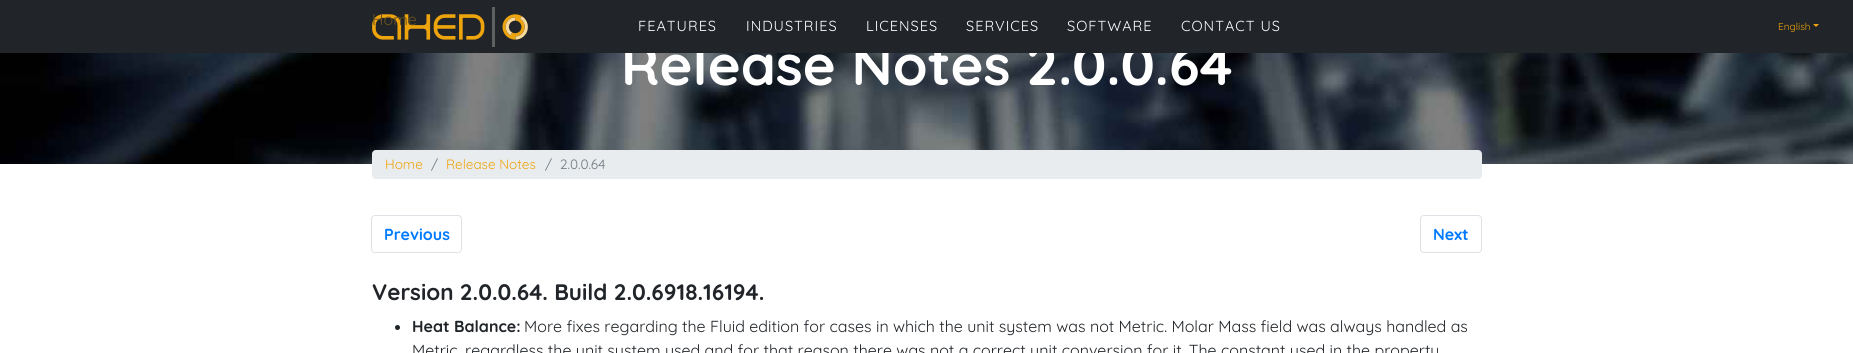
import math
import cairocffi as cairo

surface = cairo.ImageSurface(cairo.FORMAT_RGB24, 1853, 353)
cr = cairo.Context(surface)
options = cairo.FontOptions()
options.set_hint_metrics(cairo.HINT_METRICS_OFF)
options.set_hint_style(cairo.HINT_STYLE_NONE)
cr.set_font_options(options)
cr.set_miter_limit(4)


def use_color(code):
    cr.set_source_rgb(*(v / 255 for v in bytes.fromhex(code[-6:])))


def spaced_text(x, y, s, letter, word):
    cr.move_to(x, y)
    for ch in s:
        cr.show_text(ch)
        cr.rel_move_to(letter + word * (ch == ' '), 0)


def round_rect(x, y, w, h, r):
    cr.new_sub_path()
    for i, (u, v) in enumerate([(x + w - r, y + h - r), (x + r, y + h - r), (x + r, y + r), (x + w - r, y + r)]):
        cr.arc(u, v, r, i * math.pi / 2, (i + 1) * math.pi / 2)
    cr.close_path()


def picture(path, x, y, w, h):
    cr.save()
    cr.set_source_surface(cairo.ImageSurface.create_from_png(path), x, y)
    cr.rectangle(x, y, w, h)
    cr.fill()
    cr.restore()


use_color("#ffffff")
cr.paint()
picture("img2.png", 0, 53, 1853, 111)
cr.select_font_face("Quicksand", cairo.FONT_SLANT_NORMAL, cairo.FONT_WEIGHT_BOLD)
cr.set_font_size(56)
use_color("#ffffff")
cr.move_to(621, 85)
cr.show_text("Release Notes 2.0.0.64")
use_color("#212529")
cr.rectangle(0, 0, 1853, 53)
cr.fill()
picture("img1.png", 372, 7, 156, 40)
cr.select_font_face("Quicksand")
cr.set_font_size(16)
use_color("#66501f")
cr.move_to(372, 25)
cr.show_text("Home")
cr.set_font_size(14.5)
use_color("#ffffff")
spaced_text(638, 31, "FEATURES", 1, 0)
spaced_text(746, 31, "INDUSTRIES", 1, 0)
spaced_text(866, 31, "LICENSES", 1, 0)
spaced_text(966, 31, "SERVICES", 1, 0)
spaced_text(1067, 31, "SOFTWARE", 1, 0)
spaced_text(1181, 31, "CONTACT US", 1, 0)
cr.set_font_size(10)
use_color("#eea40c")
cr.move_to(1778, 30)
cr.show_text("English")
cr.new_path()
cr.move_to(1813, 24)
cr.line_to(1819, 24)
cr.line_to(1816, 27)
cr.close_path()
cr.fill()
use_color("#e9ecef")
round_rect(372, 150, 1110, 29, 4)
cr.fill()
cr.set_font_size(13.5)
use_color("#eea40c")
cr.move_to(385, 169)
cr.show_text("Home")
use_color("#6c757d")
cr.move_to(431, 169)
cr.show_text("/")
use_color("#eea40c")
cr.move_to(446, 169)
cr.show_text("Release Notes")
use_color("#6c757d")
cr.move_to(545, 169)
cr.show_text("/")
cr.move_to(560, 169)
cr.show_text("2.0.0.64")
round_rect(371.5, 215.5, 90, 37, 3.5)
use_color("#dee2e6")
cr.set_line_width(1)
cr.stroke()
cr.select_font_face("Quicksand", cairo.FONT_SLANT_NORMAL, cairo.FONT_WEIGHT_BOLD)
cr.set_font_size(16)
use_color("#007bff")
cr.move_to(384, 240)
cr.show_text("Previous")
round_rect(1420.5, 215.5, 61, 37, 3.5)
use_color("#dee2e6")
cr.stroke()
use_color("#007bff")
cr.move_to(1433, 240)
cr.show_text("Next")
cr.set_font_size(22.4)
use_color("#212529")
cr.move_to(372, 300)
cr.show_text("Version 2.0.0.64. Build 2.0.6918.16194.")
cr.new_path()
cr.arc(397.5, 327.5, 2.5, 0, 2 * math.pi)
cr.fill()
cr.set_font_size(16)
cr.move_to(412, 332)
cr.show_text("Heat Balance:")
cr.select_font_face("Quicksand")
cr.move_to(524, 332)
cr.show_text("More fixes regarding the Fluid edition for cases in which the unit system was not Metric. Molar Mass field was always handled as")
cr.move_to(412, 356)
cr.show_text("Metric, regardless the unit system used and for that reason there was not a correct unit conversion for it. The constant used in the property")
surface.write_to_png("result.png")
